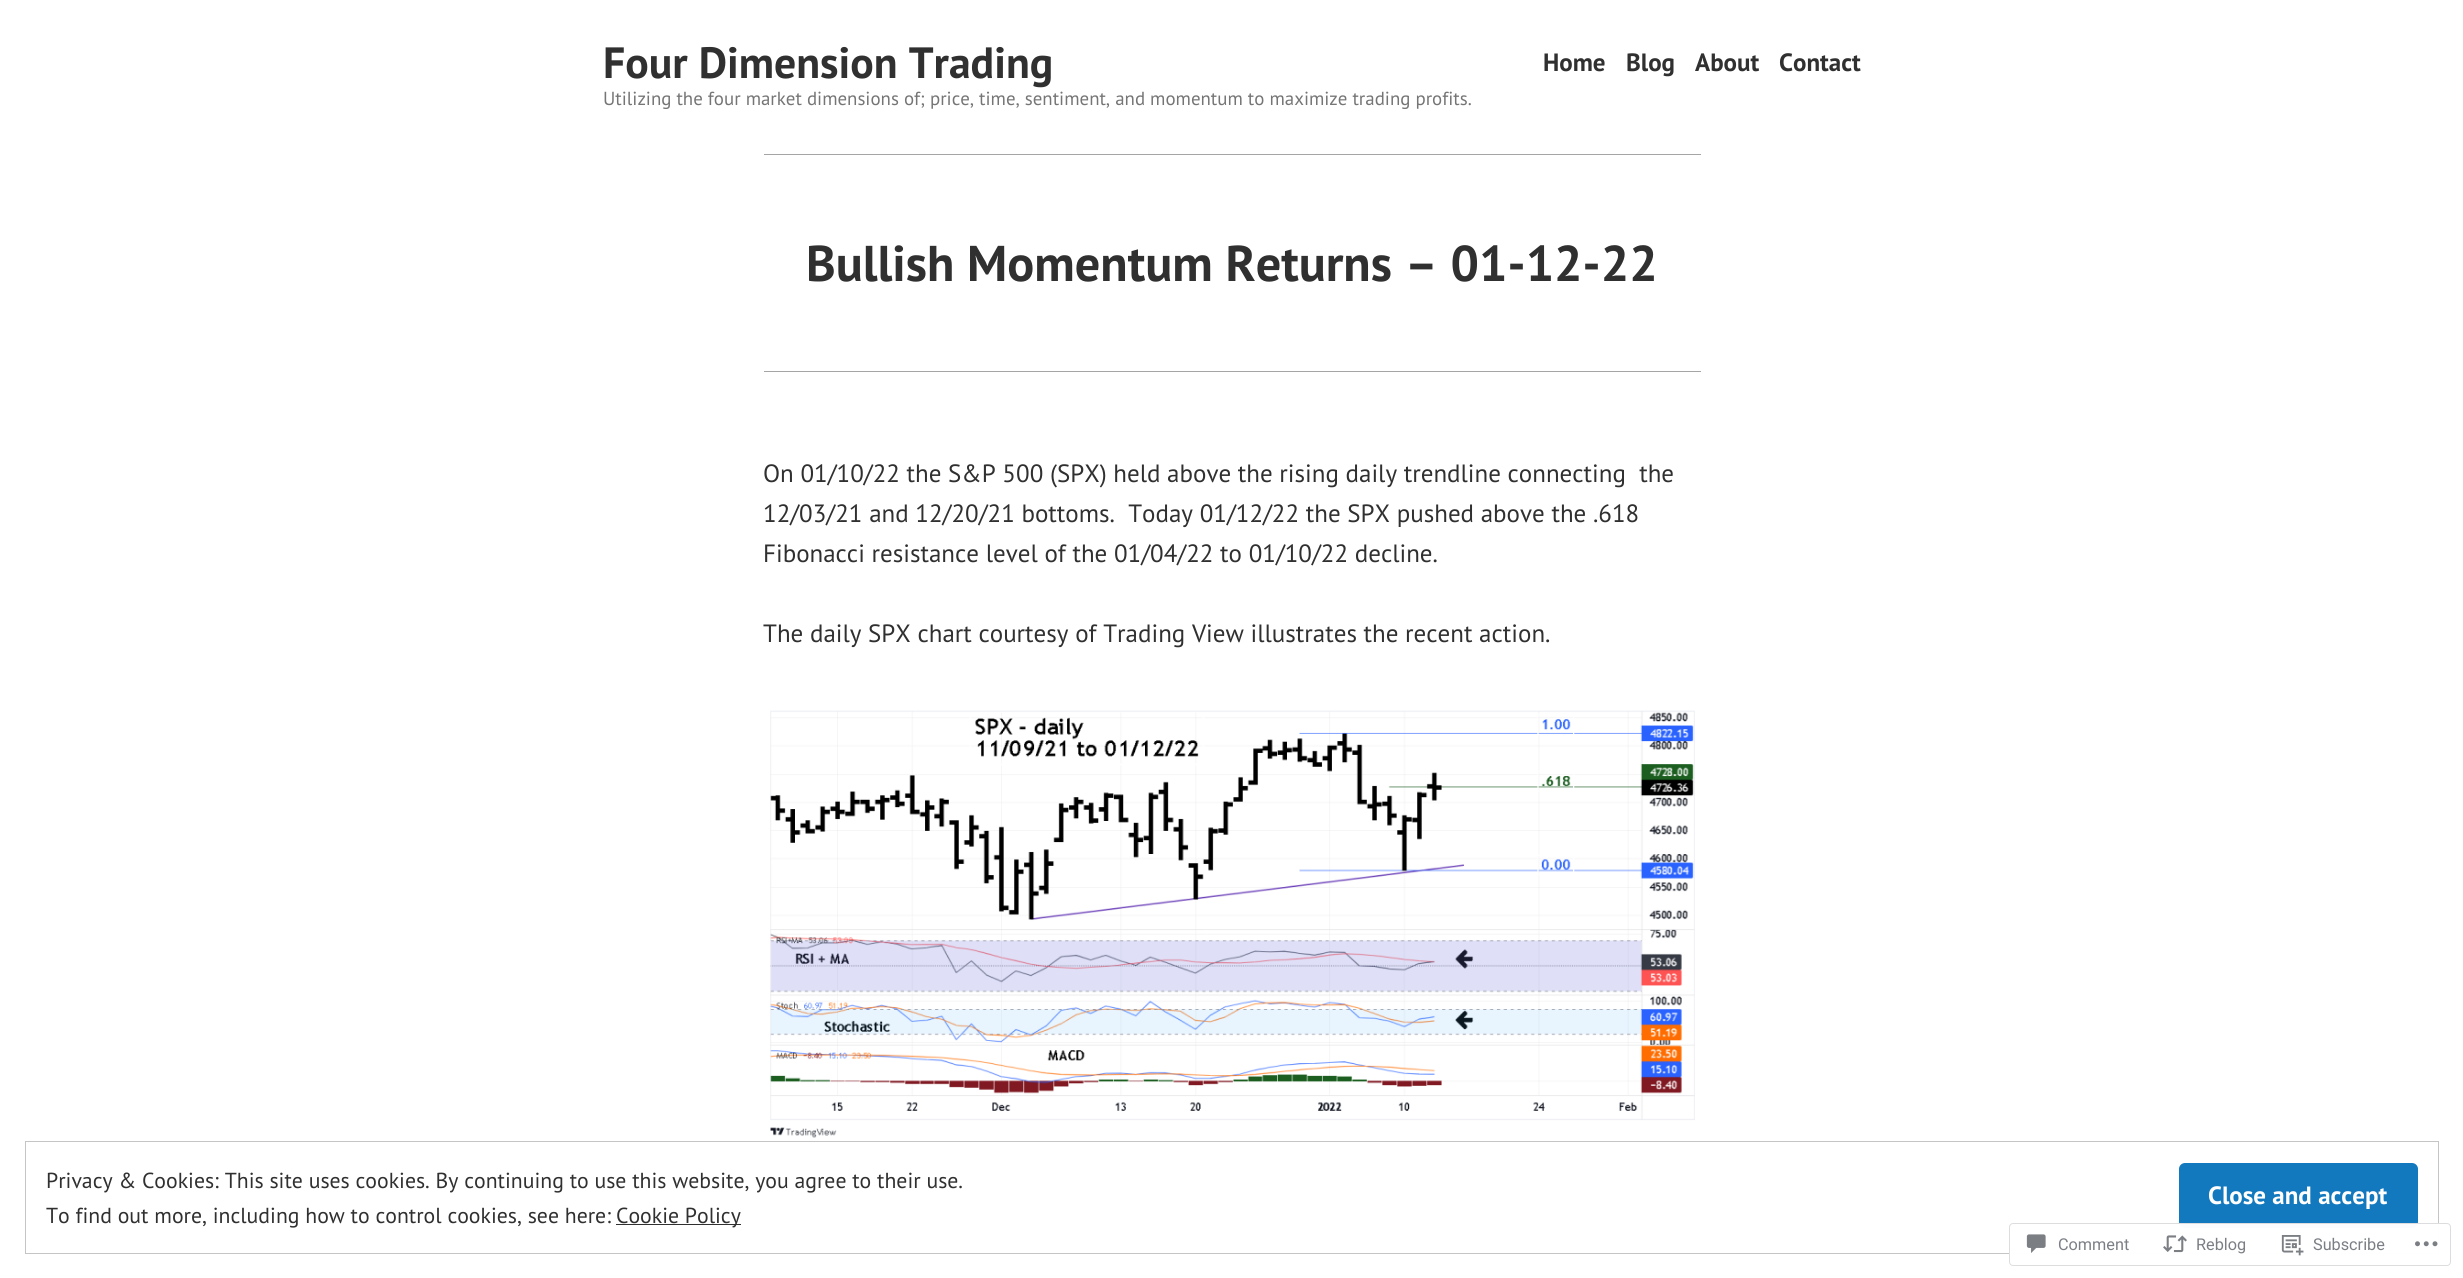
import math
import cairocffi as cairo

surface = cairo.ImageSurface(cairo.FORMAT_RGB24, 2463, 1278)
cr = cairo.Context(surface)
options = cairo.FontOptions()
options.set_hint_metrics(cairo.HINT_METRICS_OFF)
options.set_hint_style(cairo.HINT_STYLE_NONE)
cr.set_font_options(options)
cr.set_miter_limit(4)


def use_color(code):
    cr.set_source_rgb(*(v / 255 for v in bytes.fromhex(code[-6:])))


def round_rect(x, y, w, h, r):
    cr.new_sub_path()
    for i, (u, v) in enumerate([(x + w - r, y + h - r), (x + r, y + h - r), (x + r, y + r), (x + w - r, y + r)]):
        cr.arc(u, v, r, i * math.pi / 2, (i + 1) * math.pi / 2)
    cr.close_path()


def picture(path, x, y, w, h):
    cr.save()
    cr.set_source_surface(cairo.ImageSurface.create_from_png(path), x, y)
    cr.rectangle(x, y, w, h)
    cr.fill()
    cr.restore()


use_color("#ffffff")
cr.paint()
cr.select_font_face("PT Sans", cairo.FONT_SLANT_NORMAL, cairo.FONT_WEIGHT_BOLD)
cr.set_font_size(43.75)
use_color("#303030")
cr.move_to(603, 78)
cr.show_text("Four Dimension Trading")
cr.set_font_size(25)
cr.move_to(1543, 71)
cr.show_text("Home")
cr.move_to(1626, 71)
cr.show_text("Blog")
cr.move_to(1695, 71)
cr.show_text("About")
cr.move_to(1779, 71)
cr.show_text("Contact")
cr.select_font_face("PT Sans")
cr.set_font_size(18.9)
use_color("#757575")
cr.move_to(603, 105)
cr.show_text("Utilizing the four market dimensions of; price, time, sentiment, and momentum to maximize trading profits.")
use_color("#a5a5a5")
cr.rectangle(764, 154, 937, 1)
cr.fill()
cr.select_font_face("PT Sans", cairo.FONT_SLANT_NORMAL, cairo.FONT_WEIGHT_BOLD)
cr.set_font_size(50.25)
use_color("#303030")
cr.move_to(806, 281)
cr.show_text("Bullish Momentum Returns – 01-12-22")
use_color("#a5a5a5")
cr.rectangle(764, 371, 937, 1)
cr.fill()
cr.select_font_face("PT Sans")
cr.set_font_size(25)
use_color("#303030")
cr.move_to(763, 482)
cr.show_text("On 01/10/22 the S&P 500 (SPX) held above the rising daily trendline connecting  the")
cr.move_to(763, 522)
cr.show_text("12/03/21 and 12/20/21 bottoms.  Today 01/12/22 the SPX pushed above the .618")
cr.move_to(763, 562)
cr.show_text("Fibonacci resistance level of the 01/04/22 to 01/10/22 decline.")
cr.move_to(763, 642)
cr.show_text("The daily SPX chart courtesy of Trading View illustrates the recent action.")
picture("img1.png", 770, 710, 925, 428)
cr.rectangle(25.5, 1141.5, 2413, 112)
use_color("#c5c5c5")
cr.set_line_width(1)
cr.stroke()
cr.set_font_size(21.75)
use_color("#303030")
cr.move_to(46, 1188)
cr.show_text("Privacy & Cookies: This site uses cookies. By continuing to use this website, you agree to their use.")
use_color("#1279be")
round_rect(2179, 1163, 239, 65, 6)
cr.fill()
cr.select_font_face("PT Sans", cairo.FONT_SLANT_NORMAL, cairo.FONT_WEIGHT_BOLD)
cr.set_font_size(25)
use_color("#ffffff")
cr.move_to(2208, 1204)
cr.show_text("Close and accept")
cr.select_font_face("PT Sans")
cr.set_font_size(21.75)
use_color("#303030")
cr.move_to(46, 1223)
cr.show_text("To find out more, including how to control cookies, see here:")
cr.rectangle(616, 1224, 125, 1)
cr.fill()
cr.move_to(616, 1223)
cr.show_text("Cookie Policy")
cr.set_source_rgba(1, 1, 1, 0.98)
round_rect(2009, 1223, 442, 43, 4)
cr.fill()
round_rect(2009.5, 1223.5, 441, 42, 3.5)
cr.set_source_rgba(0.863, 0.863, 0.871, 0.98)
cr.stroke()
picture("img2.png", 2026, 1234, 20, 19)
cr.select_font_face("Roboto")
cr.set_font_size(16.25)
use_color("#7b7f85")
cr.move_to(2058, 1250)
cr.show_text("Comment")
picture("img3.png", 2163, 1235, 24, 18)
cr.move_to(2196, 1250)
cr.show_text("Reblog")
picture("img4.png", 2281, 1235, 23, 21)
cr.move_to(2313, 1250)
cr.show_text("Subscribe")
picture("img5.png", 2415, 1241, 23, 6)
surface.write_to_png("result.png")
